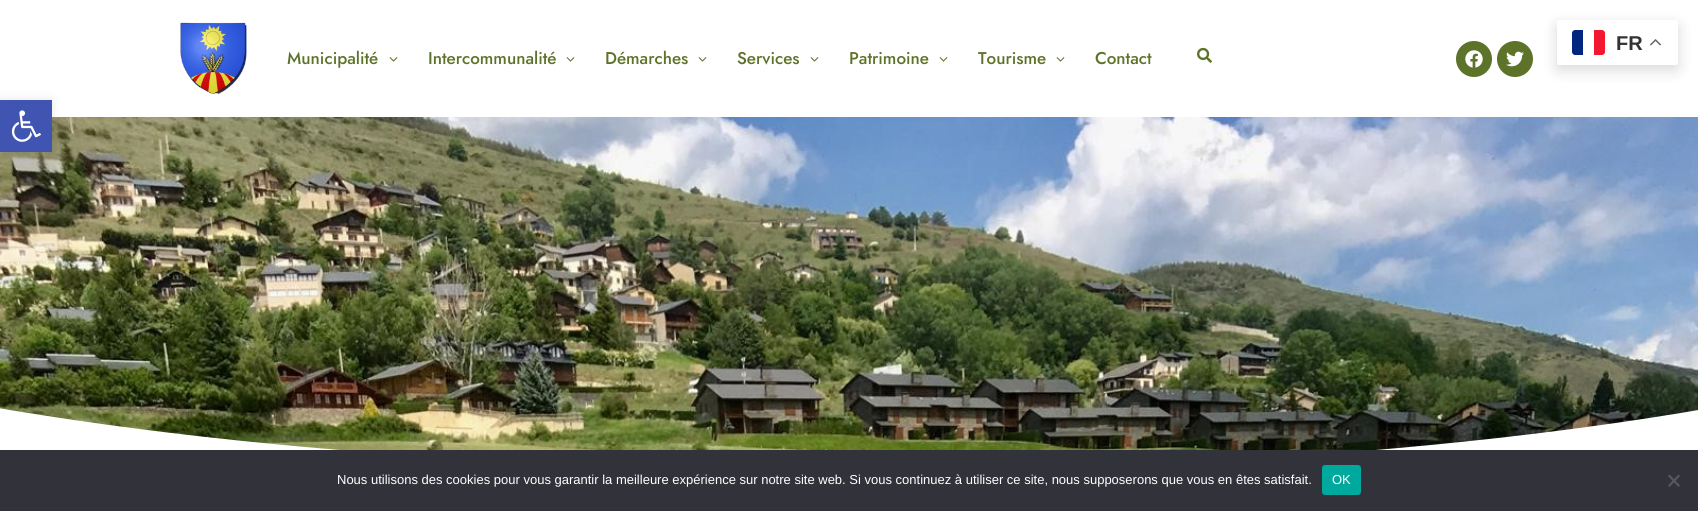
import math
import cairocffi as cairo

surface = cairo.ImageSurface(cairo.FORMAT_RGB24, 1698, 511)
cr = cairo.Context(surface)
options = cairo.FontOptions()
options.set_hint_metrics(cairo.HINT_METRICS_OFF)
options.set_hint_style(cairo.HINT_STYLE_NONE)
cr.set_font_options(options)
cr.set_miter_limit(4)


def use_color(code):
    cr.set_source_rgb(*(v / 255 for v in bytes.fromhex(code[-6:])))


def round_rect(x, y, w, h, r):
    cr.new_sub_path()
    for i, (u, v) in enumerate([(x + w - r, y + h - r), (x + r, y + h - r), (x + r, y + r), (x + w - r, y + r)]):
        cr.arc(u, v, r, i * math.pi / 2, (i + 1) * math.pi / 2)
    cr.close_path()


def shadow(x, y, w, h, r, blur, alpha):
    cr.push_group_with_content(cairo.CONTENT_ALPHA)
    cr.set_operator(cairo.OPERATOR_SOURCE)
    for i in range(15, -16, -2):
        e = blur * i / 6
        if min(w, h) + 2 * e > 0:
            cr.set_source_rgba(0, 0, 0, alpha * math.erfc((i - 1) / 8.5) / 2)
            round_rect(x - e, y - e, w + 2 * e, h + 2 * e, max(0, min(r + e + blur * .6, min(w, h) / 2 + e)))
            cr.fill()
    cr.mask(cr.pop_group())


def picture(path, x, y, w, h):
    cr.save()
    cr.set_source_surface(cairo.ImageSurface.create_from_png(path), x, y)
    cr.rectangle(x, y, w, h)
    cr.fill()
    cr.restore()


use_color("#ffffff")
cr.paint()
use_color("#000000")
shadow(1557, 25, 121, 45, 2, 7.5, 0.15)
use_color("#ffffff")
round_rect(1557, 20, 121, 45, 2)
cr.fill()
use_color("#00267f")
cr.new_path()
cr.move_to(1575, 30)
cr.line_to(1583, 30)
cr.line_to(1583, 55)
cr.line_to(1575, 55)
cr.curve_to(1573.5, 55, 1572, 53.5, 1572, 52)
cr.line_to(1572, 33)
cr.curve_to(1572, 31.5, 1573.5, 30, 1575, 30)
cr.close_path()
cr.fill()
use_color("#f31830")
cr.new_path()
cr.move_to(1594, 30)
cr.line_to(1602, 30)
cr.curve_to(1603.5, 30, 1605, 31.5, 1605, 33)
cr.line_to(1605, 52)
cr.curve_to(1605, 53.5, 1603.5, 55, 1602, 55)
cr.line_to(1594, 55)
cr.close_path()
cr.fill()
cr.select_font_face("Liberation Sans", cairo.FONT_SLANT_NORMAL, cairo.FONT_WEIGHT_BOLD)
cr.set_font_size(20)
use_color("#333333")
cr.move_to(1616, 50)
cr.show_text("FR")
picture("img1.png", 1650, 39, 11, 7)
picture("img2.png", 180, 22, 67, 72)
cr.select_font_face("Jost Medium")
cr.set_font_size(17)
use_color("#5e732a")
cr.move_to(287, 64)
cr.show_text("Municipalité")
picture("img3.png", 389, 57, 9, 5)
cr.move_to(428, 64)
cr.show_text("Intercommunalité")
picture("img3.png", 566, 57, 9, 5)
cr.move_to(605, 64)
cr.show_text("Démarches")
picture("img3.png", 698, 57, 9, 5)
cr.move_to(737, 64)
cr.show_text("Services")
picture("img3.png", 810, 57, 9, 5)
cr.move_to(849, 64)
cr.show_text("Patrimoine")
picture("img3.png", 939, 57, 9, 5)
cr.move_to(978, 64)
cr.show_text("Tourisme")
picture("img3.png", 1056, 57, 9, 5)
cr.move_to(1095, 64)
cr.show_text("Contact")
picture("img4.png", 1197, 47, 15, 16)
cr.arc(1474, 59, 18, 0, 2 * math.pi)
cr.fill()
picture("img5.png", 1465, 50, 18, 18)
cr.arc(1515, 59, 18, 0, 2 * math.pi)
cr.fill()
picture("img6.png", 1506, 51, 18, 16)
picture("img7.png", 0, 117, 1698, 333)
use_color("#ffffff")
cr.new_path()
cr.move_to(849, 470)
cr.curve_to(-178, 468, -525, 266, -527, 214)
cr.line_to(-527, 478)
cr.line_to(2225, 478)
cr.line_to(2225, 217)
cr.curve_to(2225, 265, 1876, 472, 849, 470)
cr.close_path()
cr.fill()
use_color("#000000")
shadow(0, 100, 52, 52, 0, 5, 0.1)
use_color("#4054b2")
cr.rectangle(0, 100, 52, 52)
cr.fill()
picture("img8.png", 11, 110, 30, 32)
use_color("#32323a")
cr.rectangle(0, 450, 1698, 61)
cr.fill()
cr.select_font_face("Liberation Sans")
cr.set_font_size(13)
use_color("#ffffff")
cr.move_to(337, 484)
cr.show_text("Nous utilisons des cookies pour vous garantir la meilleure expérience sur notre site web. Si vous continuez à utiliser ce site, nous supposerons que vous en êtes satisfait.")
use_color("#00a99d")
round_rect(1322, 465, 39, 30, 3)
cr.fill()
use_color("#ffffff")
cr.move_to(1332, 484)
cr.show_text("OK")
use_color("#59595d")
cr.new_path()
cr.move_to(1678.5, 474.5)
cr.line_to(1680, 476)
cr.line_to(1669.5, 487)
cr.line_to(1668, 485.5)
cr.close_path()
cr.fill()
cr.new_path()
cr.move_to(1668, 476)
cr.line_to(1669.5, 474.5)
cr.line_to(1680, 485.5)
cr.line_to(1678.5, 487)
cr.close_path()
cr.fill()
surface.write_to_png("result.png")
